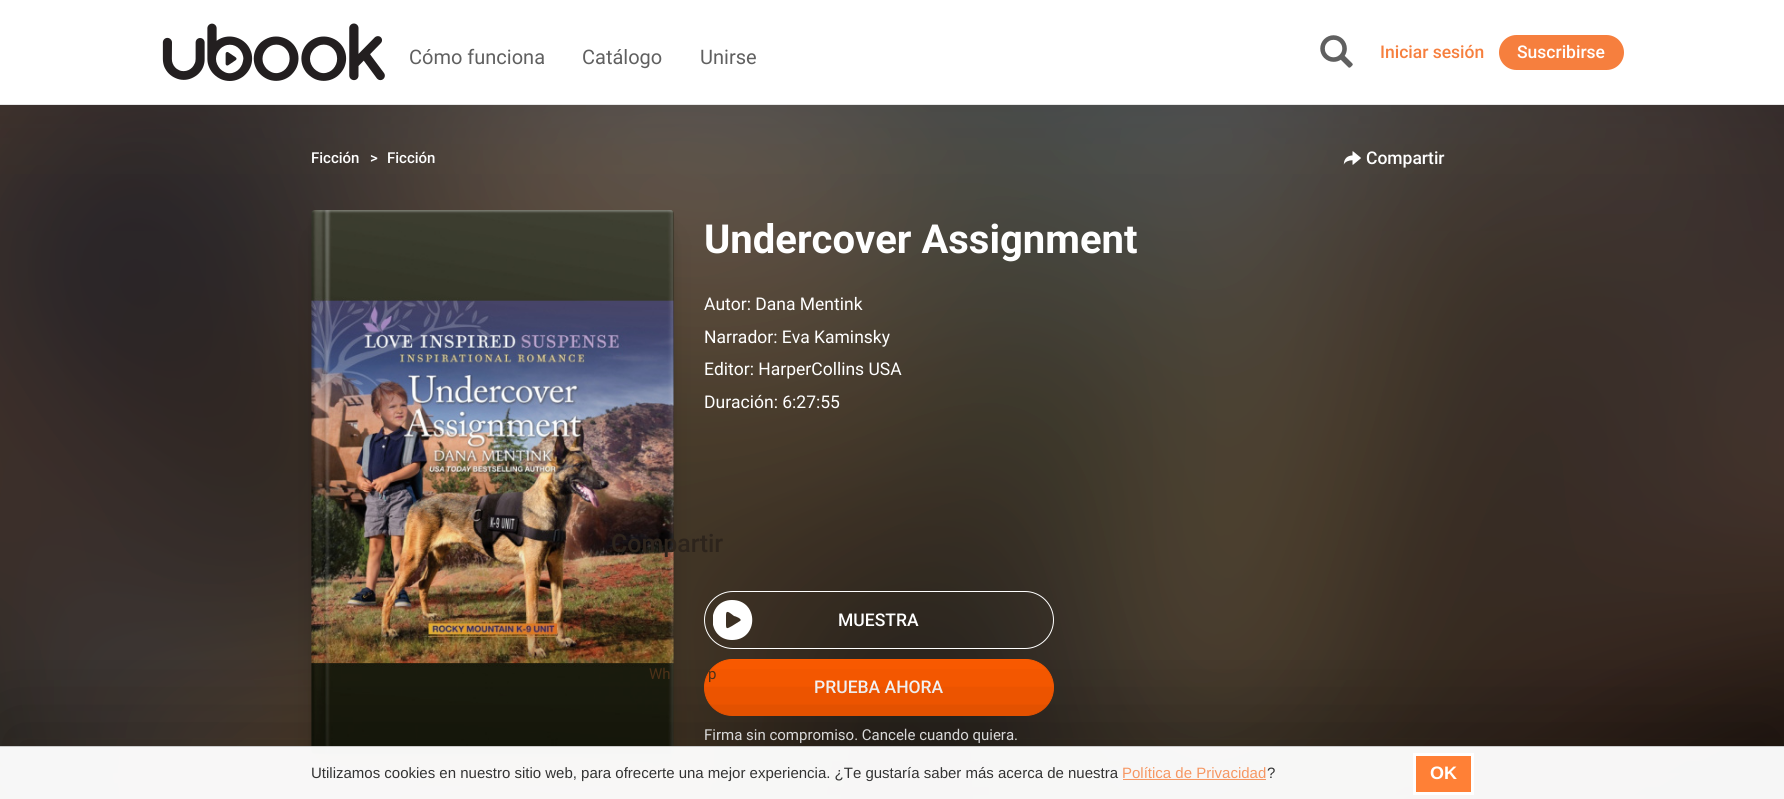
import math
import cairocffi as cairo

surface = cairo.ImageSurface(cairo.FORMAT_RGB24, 1784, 799)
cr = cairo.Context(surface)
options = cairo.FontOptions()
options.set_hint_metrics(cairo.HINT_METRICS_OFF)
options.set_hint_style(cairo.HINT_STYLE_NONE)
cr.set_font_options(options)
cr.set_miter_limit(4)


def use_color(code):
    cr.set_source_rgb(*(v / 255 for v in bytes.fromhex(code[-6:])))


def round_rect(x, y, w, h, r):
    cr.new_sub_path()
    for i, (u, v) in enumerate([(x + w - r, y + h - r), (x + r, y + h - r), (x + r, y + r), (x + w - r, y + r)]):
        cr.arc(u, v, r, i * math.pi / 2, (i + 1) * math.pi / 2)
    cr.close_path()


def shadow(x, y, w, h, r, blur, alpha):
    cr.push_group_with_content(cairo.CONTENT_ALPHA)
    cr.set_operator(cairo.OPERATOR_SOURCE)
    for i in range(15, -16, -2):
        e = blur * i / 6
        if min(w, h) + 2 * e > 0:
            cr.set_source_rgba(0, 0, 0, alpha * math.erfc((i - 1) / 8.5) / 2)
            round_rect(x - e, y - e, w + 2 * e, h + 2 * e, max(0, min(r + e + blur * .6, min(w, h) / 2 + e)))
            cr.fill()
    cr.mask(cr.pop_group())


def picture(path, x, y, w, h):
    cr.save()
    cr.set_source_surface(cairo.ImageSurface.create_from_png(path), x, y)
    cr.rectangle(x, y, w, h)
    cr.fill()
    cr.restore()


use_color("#ffffff")
cr.paint()
use_color("#e7e7e7")
cr.rectangle(0, 104, 1784, 1)
cr.fill()
picture("img1.png", 162, 23, 223, 58)
cr.select_font_face("Roboto")
cr.set_font_size(20)
use_color("#606060")
cr.move_to(409, 64)
cr.show_text("Cómo funciona")
cr.move_to(582, 64)
cr.show_text("Catálogo")
cr.move_to(700, 64)
cr.show_text("Unirse")
picture("img2.png", 1320, 35, 33, 33)
cr.select_font_face("Roboto Medium")
cr.set_font_size(17.5)
use_color("#f67f3e")
cr.move_to(1380, 58)
cr.show_text("Iniciar sesión")
round_rect(1499, 35, 125, 35, 17.5)
cr.fill()
use_color("#ffffff")
cr.move_to(1517, 58)
cr.show_text("Suscribirse")
use_color("#15150b")
cr.rectangle(0, 105, 1784, 694)
cr.fill()
picture("img3.png", 0, 105, 1784, 694)
cr.set_font_size(15)
use_color("#ffffff")
cr.move_to(311, 163)
cr.show_text("Ficción")
cr.move_to(370, 163)
cr.show_text(">")
cr.move_to(387, 163)
cr.show_text("Ficción")
picture("img4.png", 1343, 151, 18, 14)
cr.set_font_size(17.5)
cr.move_to(1366, 164)
cr.show_text("Compartir")
use_color("#000000")
shadow(316, 220, 353, 534, 0, 5, 0.2)
round_rect(704.5, 591.5, 349, 57, 28.5)
use_color("#ffffff")
cr.set_line_width(1)
cr.stroke()
use_color("#ff5b00")
round_rect(704.5, 659.5, 349, 56, 28)
cr.fill_preserve()
cr.stroke()
use_color("#000000")
shadow(321, 240, 343, 524, 0, 15, 0.2)
picture("img5.png", 311, 210, 363, 544)
cr.select_font_face("Roboto", cairo.FONT_SLANT_NORMAL, cairo.FONT_WEIGHT_BOLD)
cr.set_font_size(40)
use_color("#ffffff")
cr.move_to(704, 253)
cr.show_text("Undercover Assignment")
cr.select_font_face("Roboto")
cr.set_font_size(17.5)
cr.move_to(704, 310)
cr.show_text("Autor: Dana Mentink")
cr.move_to(704, 343)
cr.show_text("Narrador: Eva Kaminsky")
cr.move_to(704, 375)
cr.show_text("Editor: HarperCollins USA")
cr.move_to(704, 408)
cr.show_text("Duración: 6:27:55")
cr.save()
cr.rectangle(713, 600, 40, 40)
cr.clip()
cr.new_path()
cr.move_to(732, 600)
cr.curve_to(706, 600, 706, 640, 732, 640)
cr.curve_to(759, 640, 759, 600, 732, 600)
cr.close_path()
cr.move_to(740, 621)
cr.line_to(732, 626)
cr.curve_to(728, 628, 726, 630, 726, 625)
cr.line_to(726, 615)
cr.curve_to(726, 609, 730, 613, 734, 616)
cr.curve_to(735, 616, 743, 619, 740, 621)
cr.close_path()
cr.fill()
cr.restore()
cr.select_font_face("Roboto Medium")
cr.move_to(838, 626)
cr.show_text("MUESTRA")
cr.move_to(814, 693)
cr.show_text("PRUEBA AHORA")
cr.select_font_face("Roboto")
cr.set_font_size(15)
cr.move_to(704, 740)
cr.show_text("Firma sin compromiso. Cancele cuando quiera.")
cr.save()
cr.rectangle(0, 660, 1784, 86)
cr.clip()
use_color("#000000")
shadow(10, 731, 1765, 34, 0, 53, 0.3)
cr.restore()
cr.set_source_rgba(1, 1, 1, 0.96)
cr.rectangle(0, 747, 1784, 52)
cr.fill()
use_color("#cacaca")
cr.rectangle(0, 746, 1784, 1)
cr.fill()
cr.select_font_face("Liberation Sans")
use_color("#333333")
cr.move_to(311, 778)
cr.show_text("Utilizamos cookies en nuestro sitio web, para ofrecerte una mejor experiencia. ¿Te gustaría saber más acerca de nuestra")
use_color("#f69763")
cr.move_to(1122, 778)
cr.show_text("Política de Privacidad")
cr.rectangle(1123, 779, 143, 1)
cr.fill()
use_color("#333333")
cr.move_to(1267, 778)
cr.show_text("?")
use_color("#ff8036")
cr.rectangle(1414.5, 754.5, 58, 39)
cr.fill_preserve()
use_color("#ffffff")
cr.set_line_width(3)
cr.stroke()
cr.select_font_face("Liberation Sans", cairo.FONT_SLANT_NORMAL, cairo.FONT_WEIGHT_BOLD)
cr.set_font_size(18)
cr.move_to(1430, 779)
cr.show_text("OK")
cr.select_font_face("Roboto Medium")
cr.set_font_size(25)
use_color("#2d241c")
cr.move_to(611, 552)
cr.show_text("Compartir")
cr.select_font_face("Roboto")
cr.set_font_size(15)
use_color("#4d3118")
cr.move_to(649, 679)
cr.show_text("Wh")
cr.move_to(708, 679)
cr.show_text("p")
surface.write_to_png("result.png")
